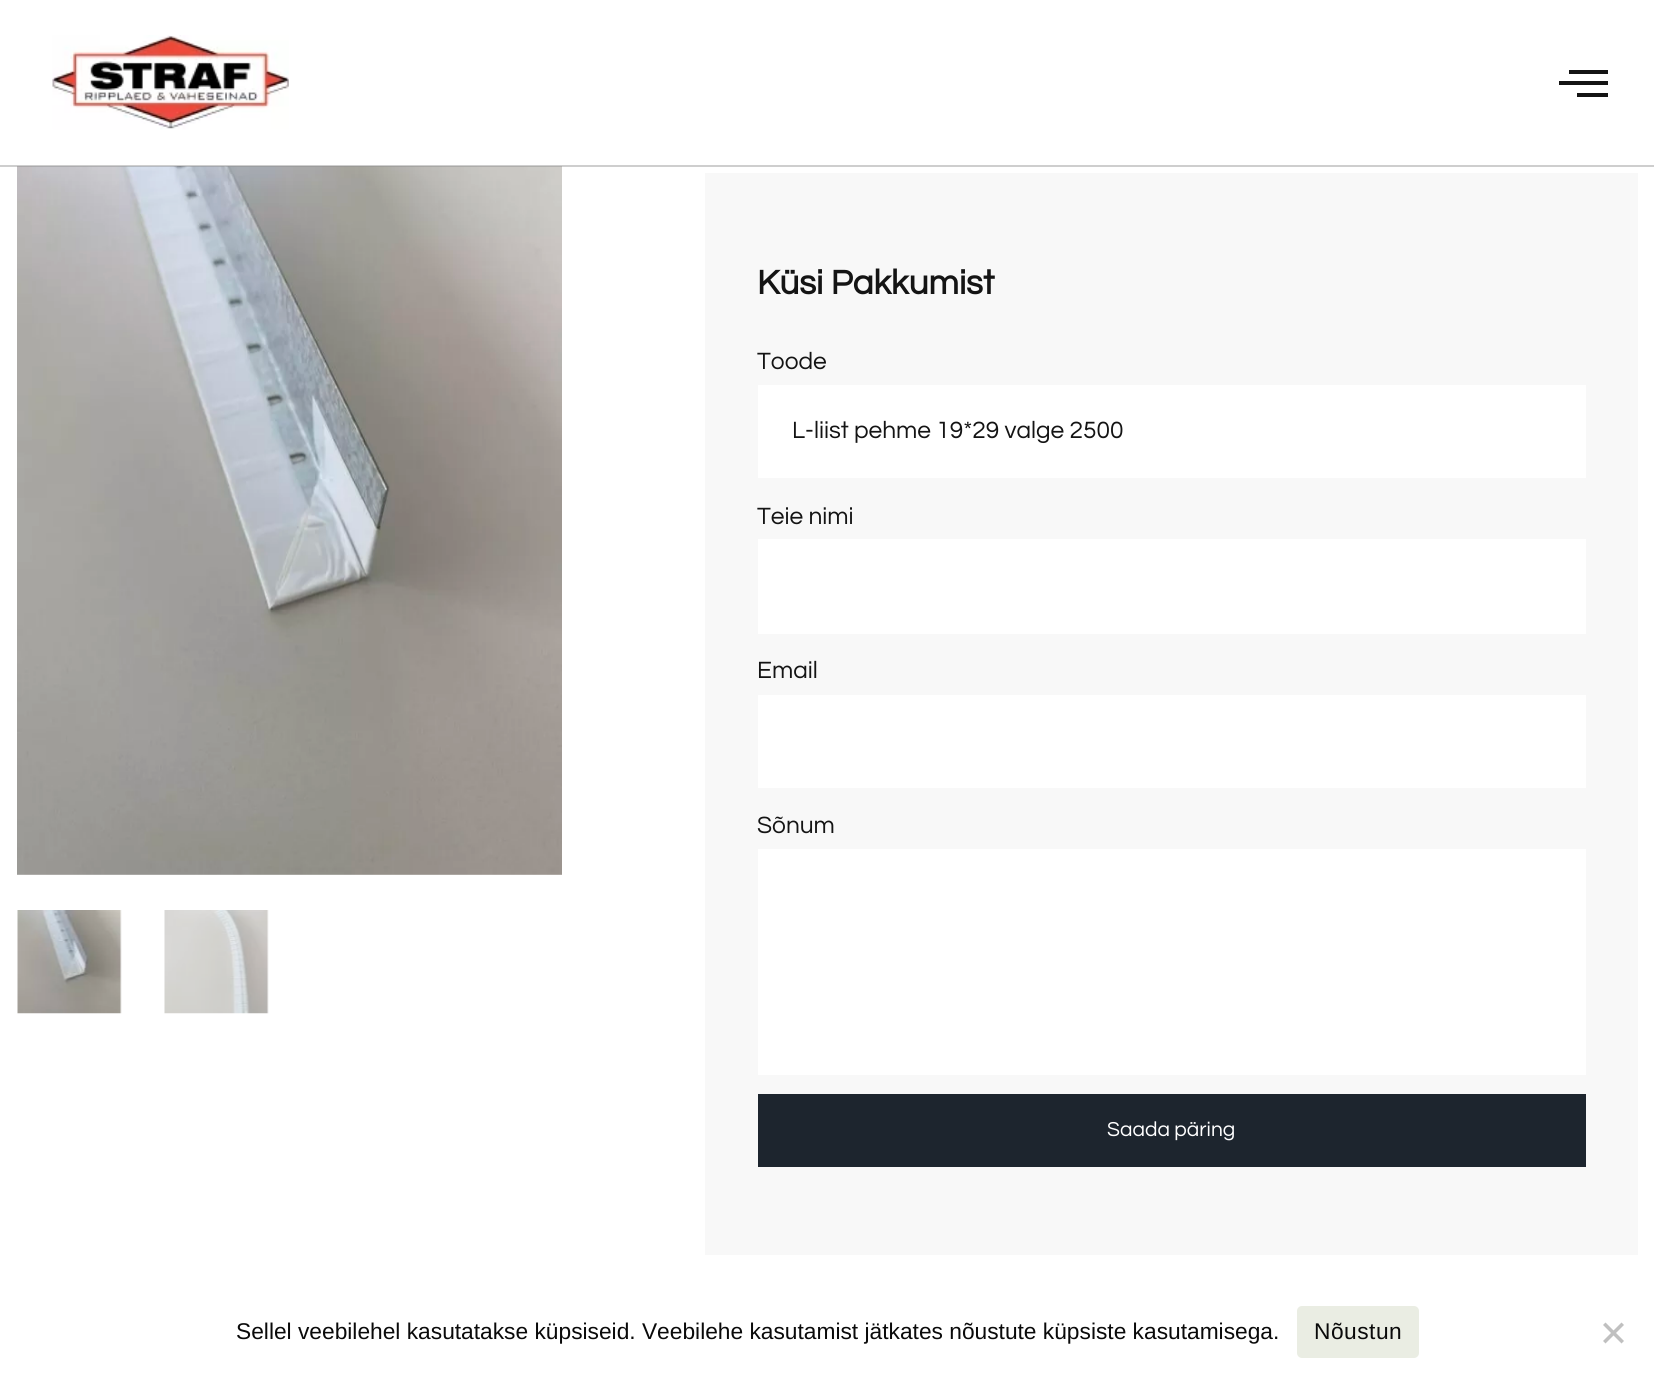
import math
import cairocffi as cairo

surface = cairo.ImageSurface(cairo.FORMAT_RGB24, 1654, 1386)
cr = cairo.Context(surface)
options = cairo.FontOptions()
options.set_hint_metrics(cairo.HINT_METRICS_OFF)
options.set_hint_style(cairo.HINT_STYLE_NONE)
cr.set_font_options(options)
cr.set_miter_limit(4)


def use_color(code):
    cr.set_source_rgb(*(v / 255 for v in bytes.fromhex(code[-6:])))


def spaced_text(x, y, s, letter, word):
    cr.move_to(x, y)
    for ch in s:
        cr.show_text(ch)
        cr.rel_move_to(letter + word * (ch == ' '), 0)


def round_rect(x, y, w, h, r):
    cr.new_sub_path()
    for i, (u, v) in enumerate([(x + w - r, y + h - r), (x + r, y + h - r), (x + r, y + r), (x + w - r, y + r)]):
        cr.arc(u, v, r, i * math.pi / 2, (i + 1) * math.pi / 2)
    cr.close_path()


def picture(path, x, y, w, h):
    cr.save()
    cr.set_source_surface(cairo.ImageSurface.create_from_png(path), x, y)
    cr.rectangle(x, y, w, h)
    cr.fill()
    cr.restore()


use_color("#ffffff")
cr.paint()
picture("img2.png", 17, 166, 545, 709)
cr.set_source_rgba(0.545, 0.545, 0.545, 0.42)
cr.rectangle(0, 165, 1654, 2)
cr.fill()
picture("img1.png", 52, 35, 237, 95)
use_color("#141414")
cr.new_path()
cr.move_to(1559, 85)
cr.line_to(1608, 85)
cr.line_to(1608, 81)
cr.line_to(1559, 81)
cr.close_path()
cr.move_to(1577, 97)
cr.line_to(1608, 97)
cr.line_to(1608, 93)
cr.line_to(1577, 93)
cr.close_path()
cr.move_to(1569, 70)
cr.line_to(1569, 74)
cr.line_to(1608, 74)
cr.line_to(1608, 70)
cr.close_path()
cr.fill()
picture("img3.png", 17, 910, 105, 104)
picture("img4.png", 164, 910, 105, 104)
use_color("#f8f8f8")
cr.rectangle(705, 173, 933, 1082)
cr.fill()
cr.select_font_face("Questrial", cairo.FONT_SLANT_NORMAL, cairo.FONT_WEIGHT_BOLD)
cr.set_font_size(35)
use_color("#141414")
cr.move_to(757, 294)
cr.show_text("Küsi Pakkumist")
cr.select_font_face("Questrial")
cr.set_font_size(24.5)
cr.move_to(757, 369)
cr.show_text("Toode")
use_color("#ffffff")
cr.rectangle(758, 385, 828, 93)
cr.fill()
use_color("#141414")
cr.move_to(792, 438)
cr.show_text("L-liist pehme 19*29 valge 2500")
cr.move_to(757, 524)
cr.show_text("Teie nimi")
use_color("#ffffff")
cr.rectangle(758, 539, 828, 95)
cr.fill()
use_color("#141414")
cr.move_to(757, 678)
cr.show_text("Email")
use_color("#ffffff")
cr.rectangle(758, 695, 828, 93)
cr.fill()
use_color("#141414")
cr.move_to(757, 833)
cr.show_text("Sõnum")
use_color("#ffffff")
cr.rectangle(758, 849, 828, 226)
cr.fill()
use_color("#1d252e")
cr.rectangle(758, 1094, 828, 73)
cr.fill()
cr.set_font_size(21)
use_color("#ffffff")
cr.move_to(1107, 1136)
cr.show_text("Saada päring")
cr.select_font_face("Liberation Sans")
cr.set_font_size(22.75)
use_color("#0a0a0a")
cr.move_to(236, 1339)
cr.show_text("Sellel veebilehel kasutatakse küpsiseid. Veebilehe kasutamist jätkates nõustute küpsiste kasutamisega.")
use_color("#eaede3")
round_rect(1297, 1306, 122, 52, 5)
cr.fill()
use_color("#0a0a0a")
spaced_text(1314, 1339, "Nõustun", 0.5, 0)
use_color("#c0c0c0")
cr.new_path()
cr.move_to(1621.5, 1322.5)
cr.line_to(1624, 1325)
cr.line_to(1605.5, 1343.5)
cr.line_to(1603, 1341)
cr.close_path()
cr.fill()
cr.new_path()
cr.move_to(1603, 1325)
cr.line_to(1605.5, 1322.5)
cr.line_to(1624, 1341)
cr.line_to(1621.5, 1343.5)
cr.close_path()
cr.fill()
surface.write_to_png("result.png")
